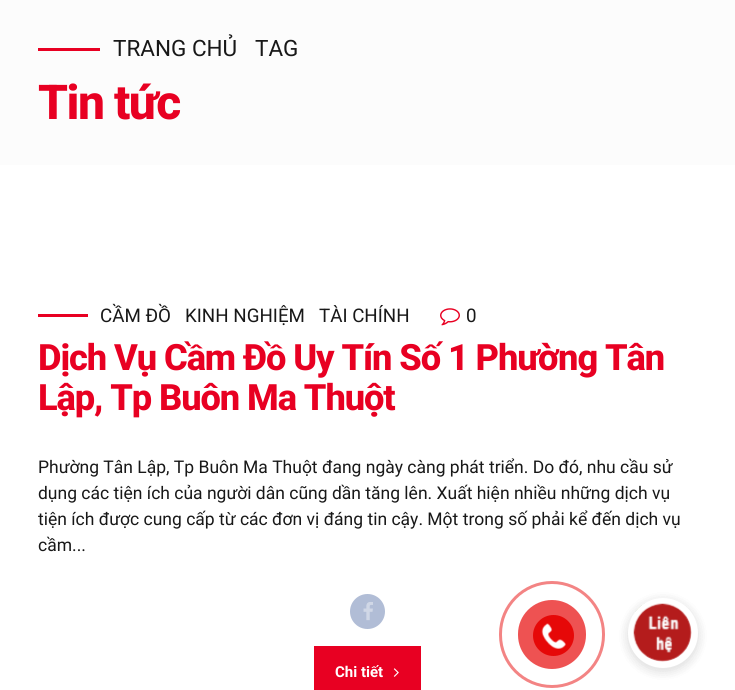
import math
import cairocffi as cairo

surface = cairo.ImageSurface(cairo.FORMAT_RGB24, 735, 690)
cr = cairo.Context(surface)
options = cairo.FontOptions()
options.set_hint_metrics(cairo.HINT_METRICS_OFF)
options.set_hint_style(cairo.HINT_STYLE_NONE)
cr.set_font_options(options)
cr.set_miter_limit(4)


def use_color(code):
    cr.set_source_rgb(*(v / 255 for v in bytes.fromhex(code[-6:])))


def spaced_text(x, y, s, letter, word):
    cr.move_to(x, y)
    for ch in s:
        cr.show_text(ch)
        cr.rel_move_to(letter + word * (ch == ' '), 0)


def round_rect(x, y, w, h, r):
    cr.new_sub_path()
    for i, (u, v) in enumerate([(x + w - r, y + h - r), (x + r, y + h - r), (x + r, y + r), (x + w - r, y + r)]):
        cr.arc(u, v, r, i * math.pi / 2, (i + 1) * math.pi / 2)
    cr.close_path()


def shadow(x, y, w, h, r, blur, alpha):
    cr.push_group_with_content(cairo.CONTENT_ALPHA)
    cr.set_operator(cairo.OPERATOR_SOURCE)
    for i in range(15, -16, -2):
        e = blur * i / 6
        if min(w, h) + 2 * e > 0:
            cr.set_source_rgba(0, 0, 0, alpha * math.erfc((i - 1) / 8.5) / 2)
            round_rect(x - e, y - e, w + 2 * e, h + 2 * e, max(0, min(r + e + blur * .6, min(w, h) / 2 + e)))
            cr.fill()
    cr.mask(cr.pop_group())


def picture(path, x, y, w, h):
    cr.save()
    cr.set_source_surface(cairo.ImageSurface.create_from_png(path), x, y)
    cr.rectangle(x, y, w, h)
    cr.fill()
    cr.restore()


use_color("#ffffff")
cr.paint()
use_color("#fcfcfc")
cr.rectangle(0, 0, 735, 165)
cr.fill()
use_color("#e80022")
cr.rectangle(38, 48, 62, 3)
cr.fill()
cr.select_font_face("Roboto")
cr.set_font_size(22.5)
use_color("#181818")
cr.move_to(113, 56)
cr.show_text("TRANG CHỦ")
cr.move_to(255, 56)
cr.show_text("TAG")
cr.select_font_face("Roboto ExtraBold")
cr.set_font_size(48)
use_color("#e80022")
spaced_text(38, 119, "Tin tức", -1.5, 0)
cr.rectangle(38, 314, 50, 3)
cr.fill()
cr.select_font_face("Roboto")
cr.set_font_size(18.75)
use_color("#181818")
cr.move_to(100, 322)
cr.show_text("CẦM ĐỒ")
cr.move_to(185, 322)
cr.show_text("KINH NGHIỆM")
cr.move_to(319, 322)
cr.show_text("TÀI CHÍNH")
picture("img1.png", 440, 308, 20, 18)
cr.move_to(466, 322)
cr.show_text("0")
cr.select_font_face("Roboto ExtraBold")
cr.set_font_size(36.25)
use_color("#e80022")
spaced_text(38, 370, "Dịch Vụ Cầm Đồ Uy Tín Số 1 Phường Tân", -1.1, 0)
spaced_text(38, 410, "Lập, Tp Buôn Ma Thuột", -1.1, 0)
cr.select_font_face("Roboto")
cr.set_font_size(17.5)
use_color("#181818")
cr.move_to(38, 473)
cr.show_text("Phường Tân Lập, Tp Buôn Ma Thuột đang ngày càng phát triển. Do đó, nhu cầu sử")
cr.move_to(38, 499)
cr.show_text("dụng các tiện ích của người dân cũng dần tăng lên. Xuất hiện nhiều những dịch vụ")
cr.move_to(38, 525)
cr.show_text("tiện ích được cung cấp từ các đơn vị đáng tin cậy. Một trong số phải kể đến dịch vụ")
cr.move_to(38, 551)
cr.show_text("cầm...")
use_color("#b1bdd6")
cr.new_path()
cr.arc(367.5, 611.5, 17.5, 0, 2 * math.pi)
cr.fill()
picture("img2.png", 363, 602, 10, 19)
use_color("#e80022")
cr.rectangle(314, 646, 107, 44)
cr.fill()
cr.select_font_face("Roboto", cairo.FONT_SLANT_NORMAL, cairo.FONT_WEIGHT_BOLD)
cr.set_font_size(15)
use_color("#ffffff")
cr.move_to(335, 677)
cr.show_text("Chi tiết")
picture("img3.png", 393, 668, 6, 9)
round_rect(500.5, 582.5, 103, 104, 51.5)
use_color("#f38484")
cr.set_line_width(3)
cr.stroke()
use_color("#ee5252")
round_rect(518, 600, 68, 69, 34)
cr.fill()
use_color("#e60808")
cr.arc(553.5, 635.5, 20.5, 0, 2 * math.pi)
cr.fill()
picture("img4.png", 541, 623, 25, 26)
picture("img7.png", 633, 602, 14, 13)
picture("img6.png", 632, 602, 15, 15)
picture("img8.png", 634, 603, 11, 11)
use_color("#000000")
shadow(628, 601, 70, 70, 35, 6, 0.08)
shadow(628, 601, 70, 70, 35, 6, 0.08)
use_color("#ffffff")
cr.arc(663, 633, 32, 0, 2 * math.pi)
cr.fill_preserve()
cr.set_line_width(6)
cr.stroke()
picture("img5.png", 633, 603, 59, 59)
surface.write_to_png("result.png")
